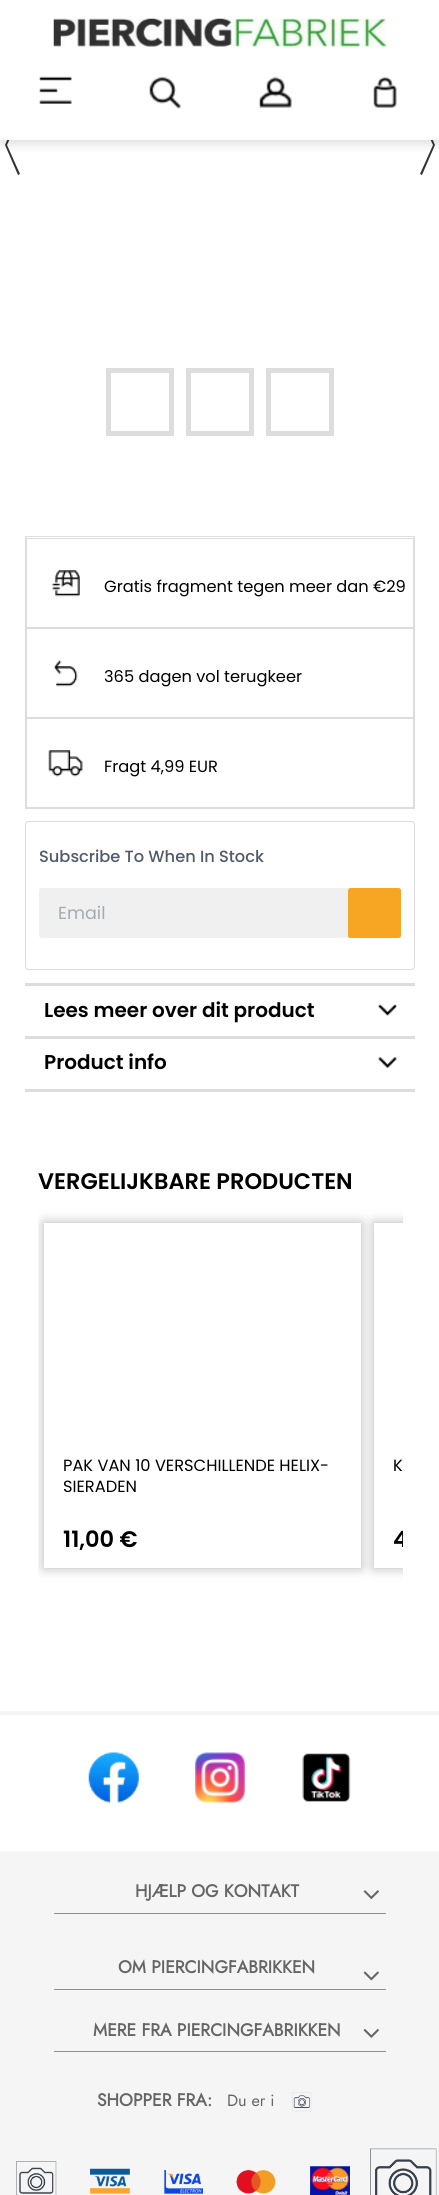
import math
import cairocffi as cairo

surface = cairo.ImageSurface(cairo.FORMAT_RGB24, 439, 2195)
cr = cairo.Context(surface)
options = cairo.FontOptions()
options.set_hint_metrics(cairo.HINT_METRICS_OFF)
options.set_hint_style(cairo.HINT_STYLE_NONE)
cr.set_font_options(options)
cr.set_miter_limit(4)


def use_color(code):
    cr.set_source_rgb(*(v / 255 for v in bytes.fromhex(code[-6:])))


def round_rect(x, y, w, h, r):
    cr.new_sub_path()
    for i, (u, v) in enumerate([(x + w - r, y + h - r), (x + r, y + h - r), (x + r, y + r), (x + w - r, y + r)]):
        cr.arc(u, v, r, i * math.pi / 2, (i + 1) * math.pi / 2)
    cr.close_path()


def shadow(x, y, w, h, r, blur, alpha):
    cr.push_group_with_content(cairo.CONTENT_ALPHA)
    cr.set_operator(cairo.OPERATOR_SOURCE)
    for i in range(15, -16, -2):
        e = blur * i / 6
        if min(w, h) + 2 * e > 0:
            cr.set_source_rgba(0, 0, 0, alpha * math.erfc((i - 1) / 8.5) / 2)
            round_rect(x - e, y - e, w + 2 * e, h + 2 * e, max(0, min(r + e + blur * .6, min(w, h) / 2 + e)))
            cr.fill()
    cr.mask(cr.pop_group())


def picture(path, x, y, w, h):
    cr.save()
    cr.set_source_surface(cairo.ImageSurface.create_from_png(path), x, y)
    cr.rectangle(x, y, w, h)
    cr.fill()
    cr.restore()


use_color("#ffffff")
cr.paint()
use_color("#333333")
cr.new_path()
cr.move_to(7, 145)
cr.line_to(20, 117)
cr.line_to(18, 115)
cr.line_to(5, 145)
cr.close_path()
cr.move_to(18, 175)
cr.line_to(20, 174)
cr.line_to(7, 145)
cr.line_to(5, 145)
cr.close_path()
cr.fill()
cr.new_path()
cr.move_to(433, 145)
cr.line_to(420, 117)
cr.line_to(422, 115)
cr.line_to(435, 145)
cr.close_path()
cr.move_to(422, 175)
cr.line_to(420, 174)
cr.line_to(433, 145)
cr.line_to(435, 145)
cr.close_path()
cr.fill()
use_color("#000000")
shadow(0, 3, 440, 140, 0, 6, 0.15)
use_color("#ffffff")
cr.rectangle(0, 0, 439, 140)
cr.fill()
picture("img1.png", 53, 18, 334, 29)
picture("img2.png", 39, 76, 33, 28)
picture("img3.png", 149, 76, 33, 33)
picture("img4.png", 259, 76, 33, 32)
picture("img5.png", 373, 76, 24, 32)
cr.rectangle(108.5, 370.5, 63, 63)
use_color("#dddddd")
cr.set_line_width(5)
cr.stroke()
cr.rectangle(188.5, 370.5, 63, 63)
cr.stroke()
cr.rectangle(268.5, 370.5, 63, 63)
cr.stroke()
cr.rectangle(25.5, 536.5, 389, 272)
cr.set_line_width(1)
cr.stroke()
cr.rectangle(26.5, 538.5, 387, 89)
cr.stroke()
picture("img6.png", 52, 570, 28, 27)
cr.select_font_face("Poppins")
cr.set_font_size(16.25)
use_color("#000000")
cr.move_to(104, 592)
cr.show_text("Gratis fragment tegen meer dan €29")
cr.rectangle(26.5, 628.5, 387, 89)
use_color("#dddddd")
cr.stroke()
picture("img7.png", 53, 660, 25, 27)
use_color("#000000")
cr.move_to(104, 682)
cr.show_text("365 dagen vol terugkeer")
cr.rectangle(26.5, 718.5, 387, 89)
use_color("#dddddd")
cr.stroke()
picture("img8.png", 48, 750, 35, 27)
use_color("#000000")
cr.move_to(104, 772)
cr.show_text("Fragt 4,99 EUR")
round_rect(25.5, 821.5, 389, 148, 3.5)
use_color("#dddddd")
cr.stroke()
cr.select_font_face("Poppins Medium")
use_color("#505b69")
cr.move_to(39, 862)
cr.show_text("Subscribe To When In Stock")
use_color("#f0f0f0")
round_rect(39, 888, 362, 50, 2.5)
cr.fill()
cr.select_font_face("Poppins")
cr.set_font_size(17.5)
use_color("#a3abb4")
cr.move_to(58, 919)
cr.show_text("Email")
use_color("#f6a623")
round_rect(348, 888, 53, 50, 2.5)
cr.fill()
use_color("#dddddd")
cr.rectangle(25, 983, 390, 3)
cr.fill()
cr.rectangle(25, 1036, 390, 3)
cr.fill()
cr.select_font_face("Poppins SemiBold")
cr.set_font_size(20)
use_color("#000000")
cr.move_to(44, 1017)
cr.show_text("Lees meer over dit product")
picture("img9.png", 378, 1004, 19, 12)
use_color("#dddddd")
cr.rectangle(25, 1089, 390, 3)
cr.fill()
use_color("#000000")
cr.move_to(44, 1069)
cr.show_text("Product info")
picture("img10.png", 378, 1057, 19, 11)
cr.set_font_size(22.5)
cr.move_to(38, 1189)
cr.show_text("VERGELIJKBARE PRODUCTEN")
cr.save()
cr.rectangle(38, 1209, 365, 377)
cr.clip()
cr.set_fill_rule(cairo.FILL_RULE_EVEN_ODD)
cr.new_path()
cr.move_to(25, 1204)
cr.line_to(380, 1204)
cr.line_to(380, 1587)
cr.line_to(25, 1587)
cr.close_path()
cr.move_to(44, 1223)
cr.line_to(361, 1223)
cr.line_to(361, 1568)
cr.line_to(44, 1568)
cr.close_path()
cr.clip()
use_color("#b5b5b5")
shadow(44, 1223, 317, 345, 0, 6, 1)
cr.restore()
cr.select_font_face("Poppins")
cr.set_font_size(16.25)
cr.move_to(63, 1471)
cr.show_text("PAK VAN 10 VERSCHILLENDE HELIX-")
cr.move_to(63, 1492)
cr.show_text("SIERADEN")
cr.select_font_face("Poppins SemiBold")
cr.set_font_size(22.5)
cr.move_to(63, 1547)
cr.show_text("11,00 €")
cr.save()
cr.rectangle(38, 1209, 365, 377)
cr.clip()
cr.set_fill_rule(cairo.FILL_RULE_EVEN_ODD)
cr.new_path()
cr.move_to(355, 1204)
cr.line_to(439, 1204)
cr.line_to(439, 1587)
cr.line_to(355, 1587)
cr.close_path()
cr.move_to(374, 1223)
cr.line_to(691, 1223)
cr.line_to(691, 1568)
cr.line_to(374, 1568)
cr.close_path()
cr.clip()
use_color("#b5b5b5")
shadow(374, 1223, 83, 345, 0, 6, 1)
cr.restore()
cr.select_font_face("Poppins")
cr.set_font_size(16.25)
cr.move_to(393, 1471)
cr.show_text("K")
cr.save()
cr.rectangle(393, 1524, 10, 31)
cr.clip()
cr.select_font_face("Poppins SemiBold")
cr.set_font_size(22.5)
cr.move_to(393, 1547)
cr.show_text("4")
cr.restore()
use_color("#f5f5f5")
cr.rectangle(0, 1851, 439, 344)
cr.fill()
cr.rectangle(0, 1711, 439, 4)
cr.fill()
picture("img11.png", 88, 1752, 51, 51)
picture("img12.png", 195, 1752, 50, 51)
picture("img13.png", 302, 1753, 49, 49)
use_color("#919191")
cr.rectangle(54, 1913, 332, 1)
cr.fill()
cr.select_font_face("Jost", cairo.FONT_SLANT_NORMAL, cairo.FONT_WEIGHT_BOLD)
cr.set_font_size(17.5)
use_color("#666666")
cr.move_to(135, 1897)
cr.show_text("HJÆLP OG KONTAKT")
picture("img14.png", 363, 1890, 16, 10)
use_color("#919191")
cr.rectangle(54, 1989, 332, 1)
cr.fill()
use_color("#666666")
cr.move_to(118, 1973)
cr.show_text("OM PIERCINGFABRIKKEN")
picture("img15.png", 363, 1971, 16, 10)
use_color("#919191")
cr.rectangle(54, 2051, 332, 1)
cr.fill()
use_color("#666666")
cr.move_to(93, 2036)
cr.show_text("MERE FRA PIERCINGFABRIKKEN")
picture("img16.png", 363, 2029, 16, 9)
cr.move_to(97, 2106)
cr.show_text("SHOPPER FRA:")
cr.select_font_face("Jost")
cr.set_font_size(16.25)
cr.move_to(227, 2106)
cr.show_text("Du er i")
picture("img17.png", 292, 2092, 20, 20)
picture("img18.png", 16, 2161, 41, 34)
picture("img19.png", 90, 2168, 40, 26)
picture("img20.png", 164, 2170, 39, 24)
picture("img21.png", 236, 2170, 40, 24)
picture("img22.png", 310, 2166, 40, 29)
picture("img23.png", 370, 2148, 67, 47)
surface.write_to_png("result.png")
